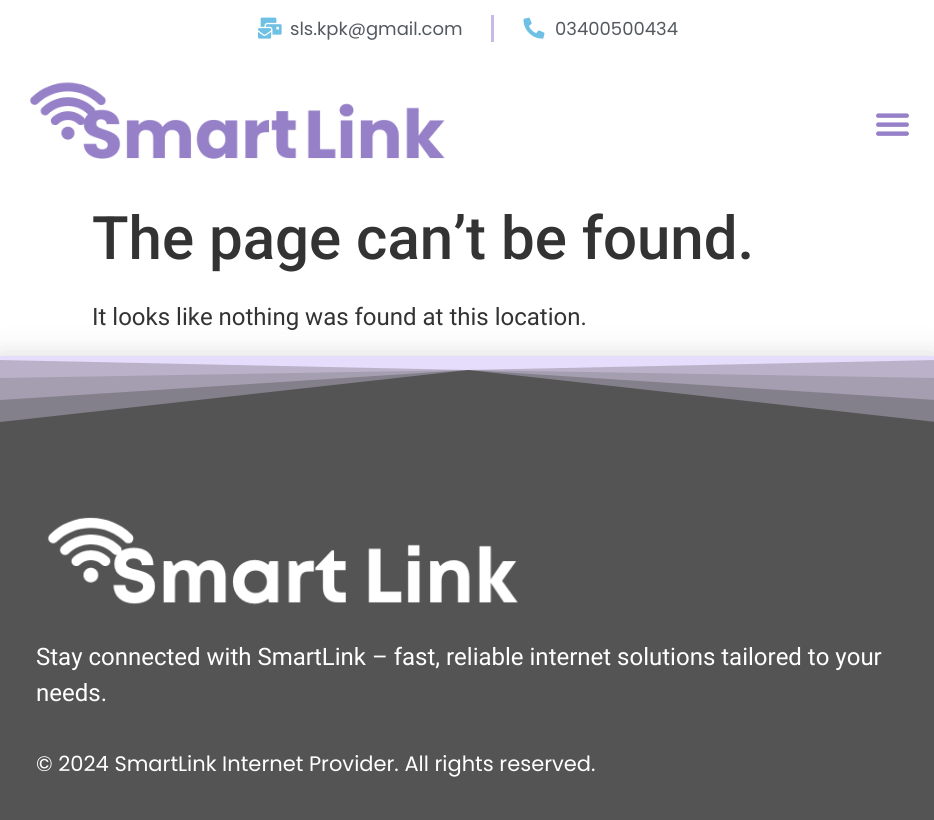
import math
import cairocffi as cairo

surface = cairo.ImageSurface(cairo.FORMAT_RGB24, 934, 820)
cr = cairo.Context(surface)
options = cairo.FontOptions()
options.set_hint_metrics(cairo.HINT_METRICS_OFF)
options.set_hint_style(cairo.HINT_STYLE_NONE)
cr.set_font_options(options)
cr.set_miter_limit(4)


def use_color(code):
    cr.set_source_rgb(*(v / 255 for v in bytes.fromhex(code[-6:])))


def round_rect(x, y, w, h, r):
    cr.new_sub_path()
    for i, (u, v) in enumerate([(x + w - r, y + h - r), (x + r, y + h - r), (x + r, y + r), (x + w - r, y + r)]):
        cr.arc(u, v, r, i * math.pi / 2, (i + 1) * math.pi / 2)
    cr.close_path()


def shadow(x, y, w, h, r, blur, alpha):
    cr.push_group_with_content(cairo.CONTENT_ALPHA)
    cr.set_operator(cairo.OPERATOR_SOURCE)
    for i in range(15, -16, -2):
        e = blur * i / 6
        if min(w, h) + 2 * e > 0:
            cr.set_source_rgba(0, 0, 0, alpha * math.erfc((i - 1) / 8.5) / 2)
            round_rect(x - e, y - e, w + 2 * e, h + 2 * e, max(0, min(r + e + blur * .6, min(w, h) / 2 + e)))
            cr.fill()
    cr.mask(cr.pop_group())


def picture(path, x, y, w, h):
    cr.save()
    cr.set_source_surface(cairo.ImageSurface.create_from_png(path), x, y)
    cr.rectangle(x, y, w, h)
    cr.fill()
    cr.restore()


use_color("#ffffff")
cr.paint()
picture("img1.png", 258, 17, 24, 22)
cr.select_font_face("Poppins")
cr.set_font_size(18)
use_color("#54595f")
cr.move_to(290, 35)
cr.show_text("sls.kpk@gmail.com")
use_color("#c8bae7")
cr.rectangle(491, 15, 3, 27)
cr.fill()
picture("img2.png", 523, 17, 22, 22)
use_color("#54595f")
cr.move_to(555, 35)
cr.show_text("03400500434")
picture("img3.png", 30, 82, 415, 77)
picture("img4.png", 876, 113, 33, 23)
cr.select_font_face("Roboto Medium")
cr.set_font_size(60)
use_color("#333333")
cr.move_to(92, 259)
cr.show_text("The page can’t be found.")
cr.select_font_face("Roboto")
cr.set_font_size(24)
cr.move_to(92, 325)
cr.show_text("It looks like nothing was found at this location.")
use_color("#afafaf")
shadow(0, 357, 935, 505, 0, 14, 0.5)
use_color("#545454")
cr.rectangle(0, 360, 934, 460)
cr.fill()
cr.set_source_rgba(0.902, 0.863, 0.988, 0.33)
cr.new_path()
cr.move_to(0, 356)
cr.line_to(0, 422)
cr.line_to(468, 370)
cr.line_to(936, 422)
cr.line_to(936, 356)
cr.close_path()
cr.fill()
cr.new_path()
cr.move_to(0, 356)
cr.line_to(0, 400)
cr.line_to(468, 370)
cr.line_to(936, 400)
cr.line_to(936, 356)
cr.close_path()
cr.fill()
cr.new_path()
cr.move_to(0, 356)
cr.line_to(0, 378)
cr.line_to(468, 370)
cr.line_to(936, 378)
cr.line_to(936, 356)
cr.close_path()
cr.fill()
use_color("#e6dcfc")
cr.new_path()
cr.move_to(0, 356)
cr.line_to(0, 360)
cr.line_to(468, 370)
cr.line_to(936, 360)
cr.line_to(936, 356)
cr.close_path()
cr.fill()
picture("img5.png", 47, 517, 471, 88)
use_color("#ffffff")
cr.move_to(36, 665)
cr.show_text("Stay connected with SmartLink – fast, reliable internet solutions tailored to your")
cr.move_to(36, 701)
cr.show_text("needs.")
cr.select_font_face("Poppins")
cr.set_font_size(21)
cr.move_to(36, 771)
cr.show_text("© 2024 SmartLink Internet Provider. All rights reserved.")
surface.write_to_png("result.png")
